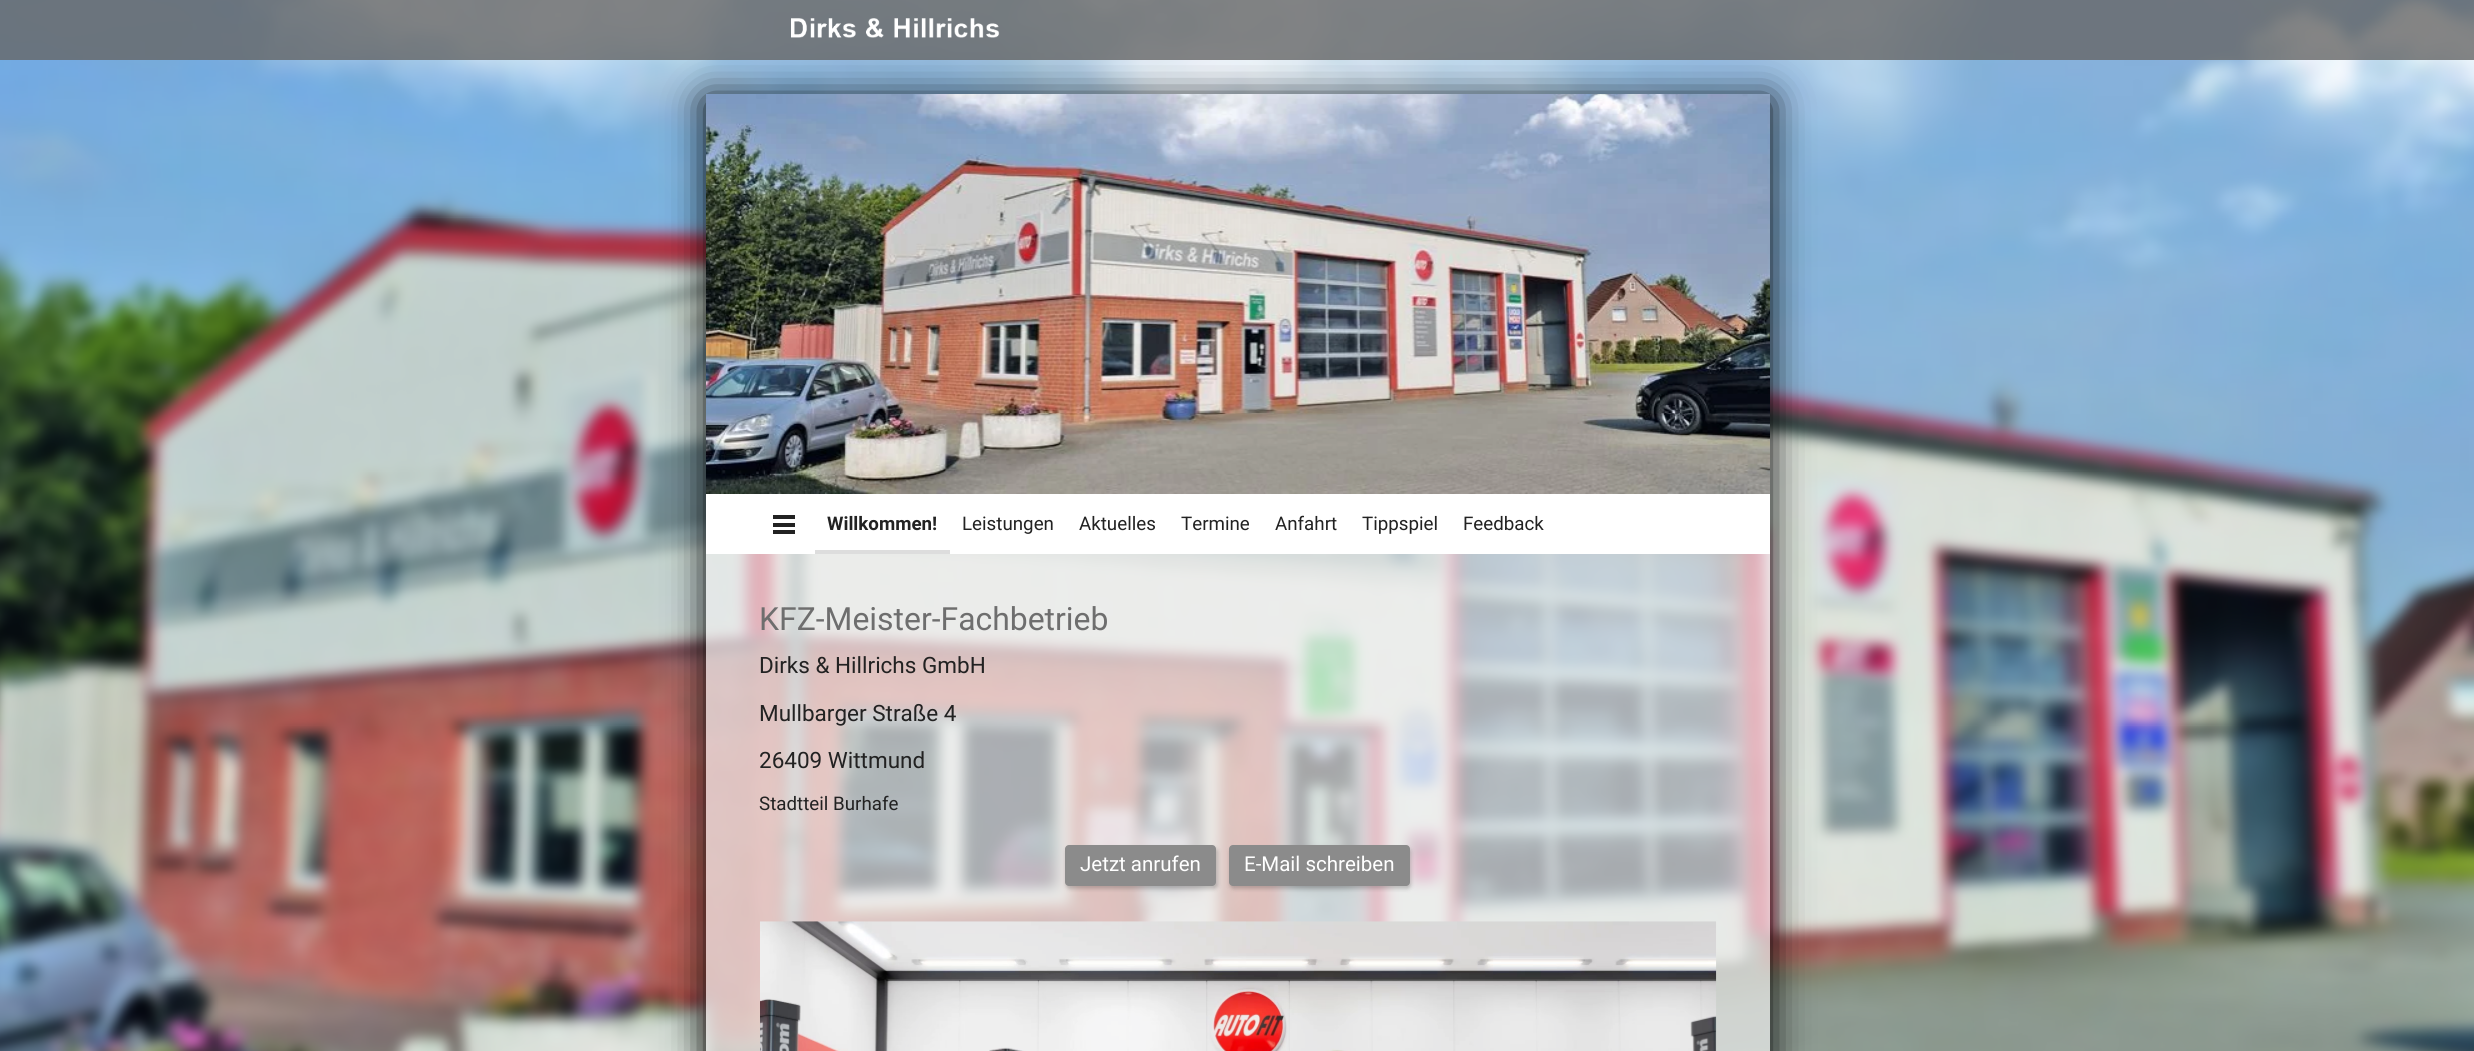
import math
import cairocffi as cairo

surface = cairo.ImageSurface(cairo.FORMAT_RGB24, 2474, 1051)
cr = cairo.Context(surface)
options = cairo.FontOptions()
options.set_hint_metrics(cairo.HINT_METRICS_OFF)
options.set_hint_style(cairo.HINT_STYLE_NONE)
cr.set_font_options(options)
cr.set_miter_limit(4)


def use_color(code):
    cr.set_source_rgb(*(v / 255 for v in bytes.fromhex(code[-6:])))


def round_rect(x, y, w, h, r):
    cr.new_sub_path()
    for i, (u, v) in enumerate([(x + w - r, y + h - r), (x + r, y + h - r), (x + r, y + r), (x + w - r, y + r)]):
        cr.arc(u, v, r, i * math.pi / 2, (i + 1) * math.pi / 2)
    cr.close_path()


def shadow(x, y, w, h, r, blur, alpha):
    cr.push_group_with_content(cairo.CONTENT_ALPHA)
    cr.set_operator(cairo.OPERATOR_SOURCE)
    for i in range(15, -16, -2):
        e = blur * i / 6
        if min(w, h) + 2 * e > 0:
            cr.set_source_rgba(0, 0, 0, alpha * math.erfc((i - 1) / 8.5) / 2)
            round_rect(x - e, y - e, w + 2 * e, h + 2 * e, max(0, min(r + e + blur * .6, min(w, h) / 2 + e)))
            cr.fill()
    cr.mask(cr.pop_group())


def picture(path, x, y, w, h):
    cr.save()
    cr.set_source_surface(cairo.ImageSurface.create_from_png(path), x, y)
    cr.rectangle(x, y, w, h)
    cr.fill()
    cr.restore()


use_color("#ffffff")
cr.paint()
picture("img1.png", 0, 0, 2474, 1051)
cr.set_source_rgba(0.945, 0.945, 0.945, 0.68)
cr.rectangle(706, 554, 1064, 497)
cr.fill()
use_color("#000000")
shadow(1066, 848, 152, 41, 4, 2, 0.2)
use_color("#8b8b8b")
round_rect(1065, 845, 151, 41, 4)
cr.fill()
use_color("#000000")
shadow(1230, 848, 181, 41, 4, 2, 0.2)
use_color("#8b8b8b")
round_rect(1229, 845, 181, 41, 4)
cr.fill()
picture("img4.png", 760, 921, 957, 130)
cr.save()
cr.set_fill_rule(cairo.FILL_RULE_EVEN_ODD)
cr.new_path()
cr.move_to(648, 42)
cr.line_to(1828, 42)
cr.line_to(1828, 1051)
cr.line_to(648, 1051)
cr.close_path()
cr.move_to(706, 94)
cr.line_to(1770, 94)
cr.line_to(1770, 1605)
cr.line_to(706, 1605)
cr.close_path()
cr.clip()
use_color("#000000")
shadow(706, 100, 1064, 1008, 0, 19, 1)
cr.restore()
cr.set_source_rgba(0.404, 0.404, 0.404, 0.8)
cr.rectangle(0, 0, 2474, 60)
cr.fill()
picture("img2.png", 791, 18, 209, 20)
picture("img3.png", 706, 94, 1064, 400)
use_color("#ffffff")
cr.rectangle(706, 494, 1064, 60)
cr.fill()
use_color("#222222")
cr.rectangle(773, 515, 22, 4)
cr.fill()
cr.rectangle(773, 523, 22, 4)
cr.fill()
cr.rectangle(773, 530, 22, 4)
cr.fill()
cr.select_font_face("Roboto", cairo.FONT_SLANT_NORMAL, cairo.FONT_WEIGHT_BOLD)
cr.set_font_size(18.75)
cr.move_to(827, 530)
cr.show_text("Willkommen!")
use_color("#dddddd")
cr.rectangle(815, 550, 135, 4)
cr.fill()
cr.select_font_face("Roboto")
use_color("#222222")
cr.move_to(962, 530)
cr.show_text("Leistungen")
cr.move_to(1079, 530)
cr.show_text("Aktuelles")
cr.move_to(1181, 530)
cr.show_text("Termine")
cr.move_to(1275, 530)
cr.show_text("Anfahrt")
cr.move_to(1362, 530)
cr.show_text("Tippspiel")
cr.move_to(1463, 530)
cr.show_text("Feedback")
cr.set_font_size(31.9)
use_color("#6e6e6e")
cr.move_to(759, 630)
cr.show_text("KFZ-Meister-Fachbetrieb")
cr.set_font_size(22.5)
use_color("#222222")
cr.move_to(759, 673)
cr.show_text("Dirks & Hillrichs GmbH")
cr.move_to(759, 721)
cr.show_text("Mullbarger Straße 4")
cr.move_to(759, 768)
cr.show_text("26409 Wittmund")
cr.set_font_size(18.75)
cr.move_to(759, 810)
cr.show_text("Stadtteil Burhafe")
cr.set_font_size(20.5)
use_color("#ffffff")
cr.move_to(1080, 871)
cr.show_text("Jetzt anrufen")
cr.move_to(1244, 871)
cr.show_text("E-Mail schreiben")
surface.write_to_png("result.png")
